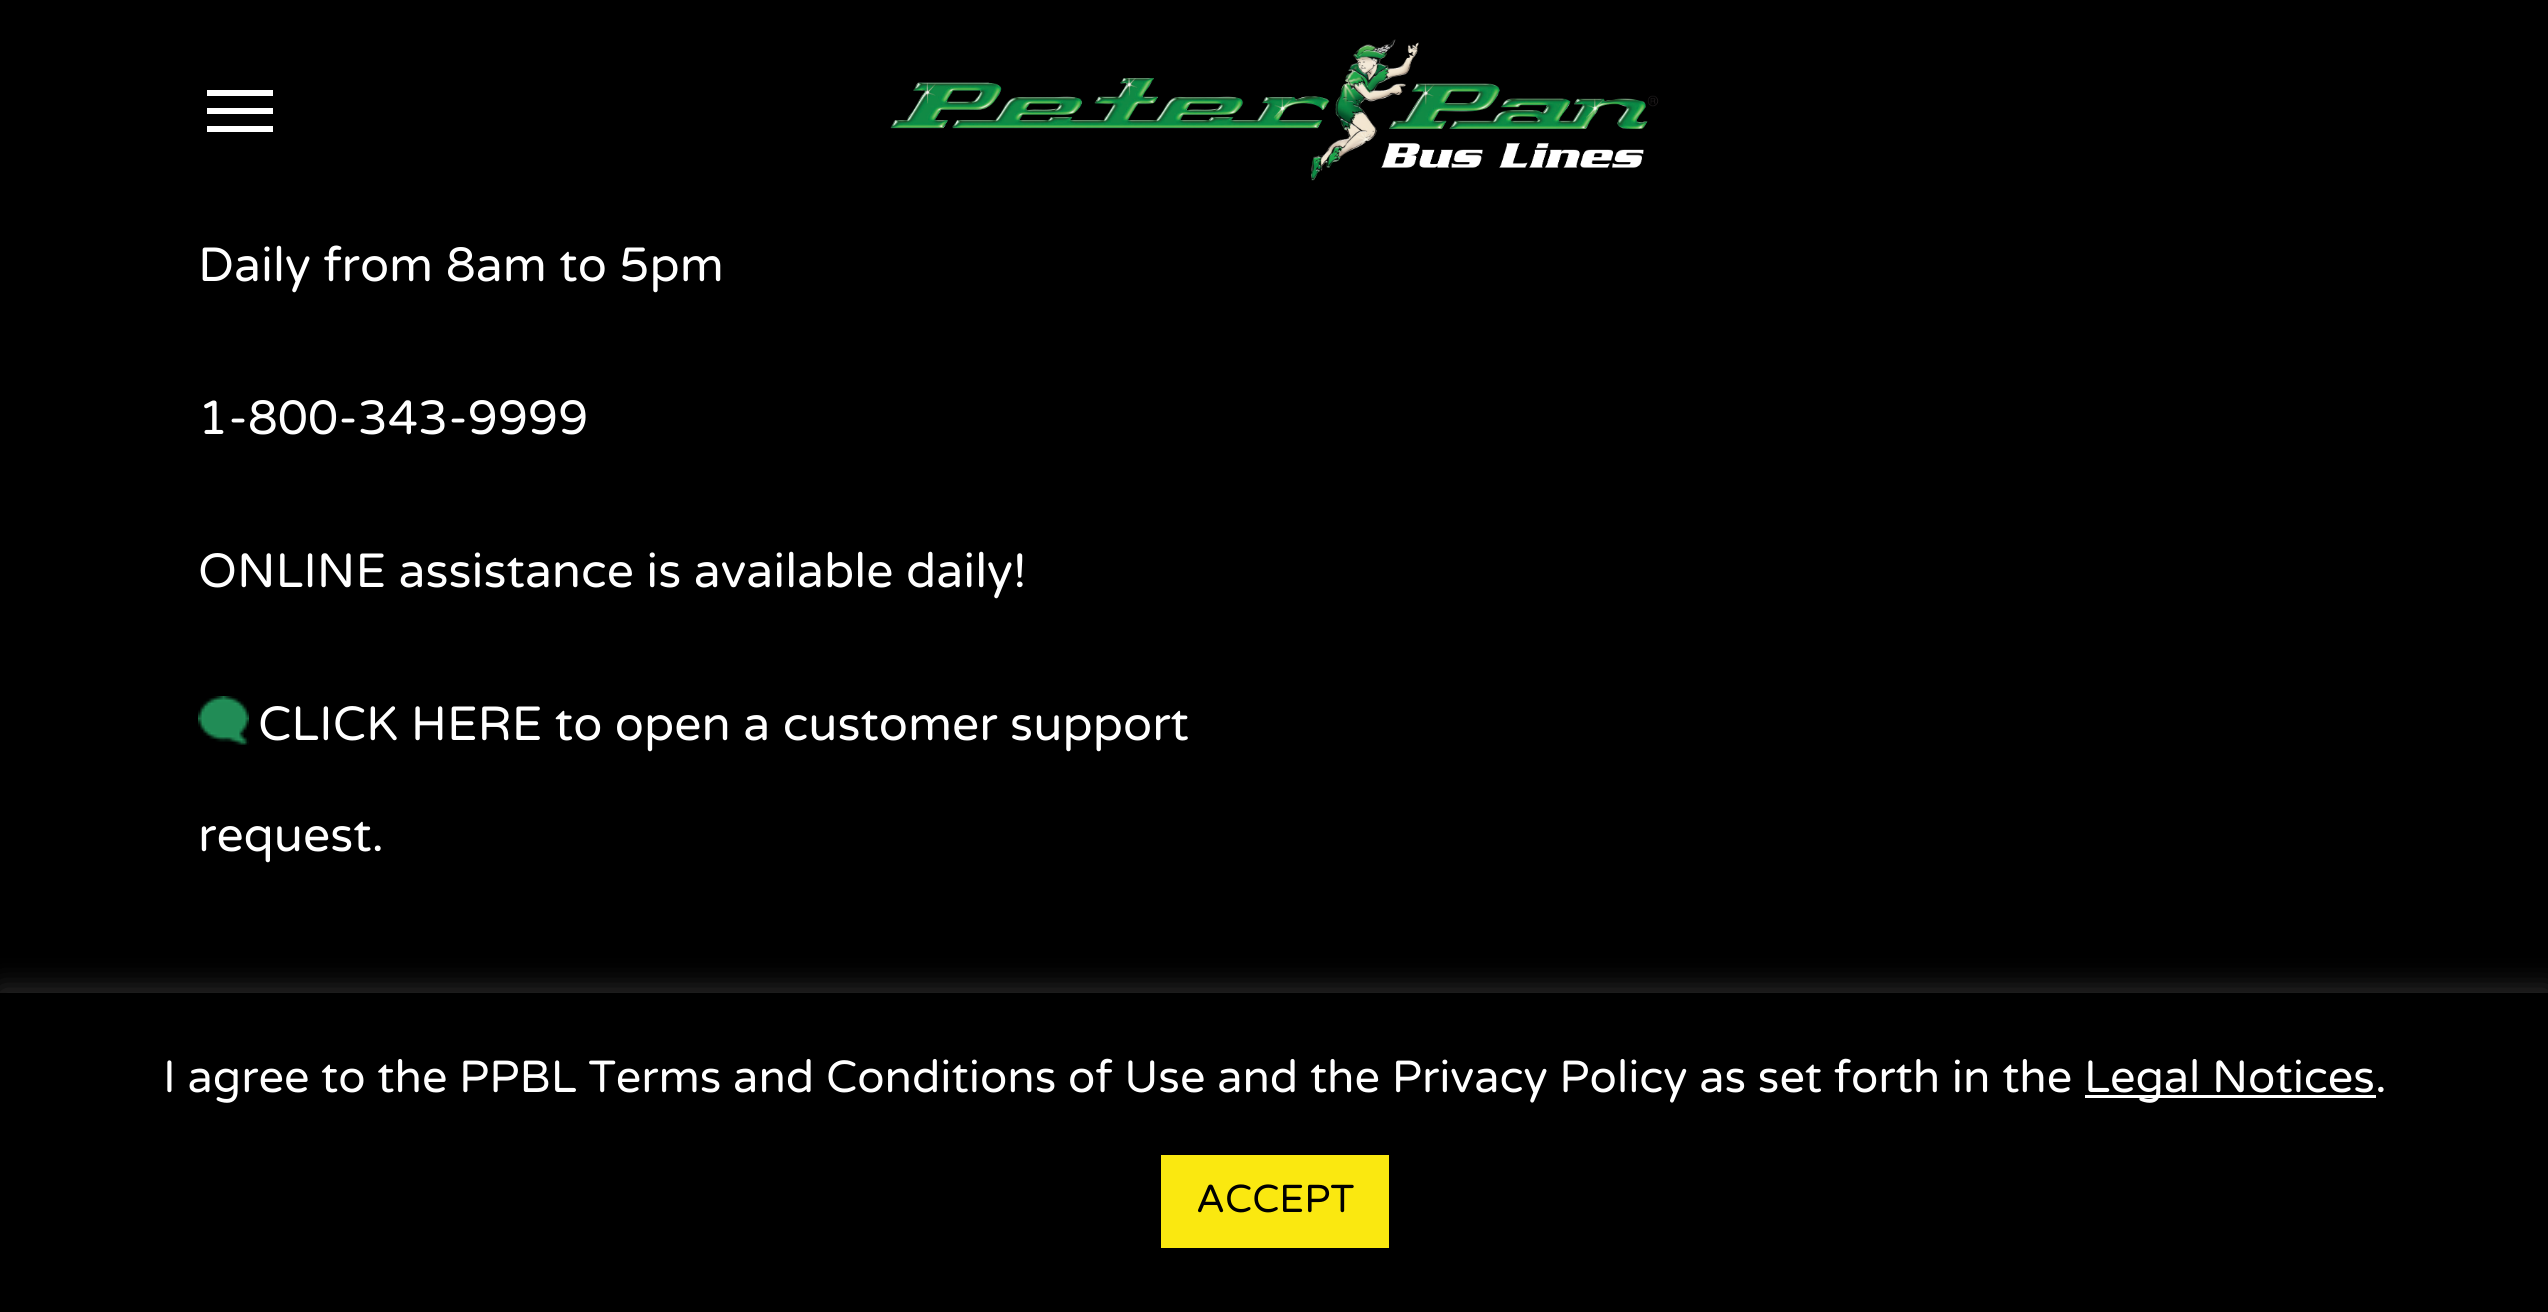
import math
import cairocffi as cairo

surface = cairo.ImageSurface(cairo.FORMAT_RGB24, 2548, 1312)
cr = cairo.Context(surface)
options = cairo.FontOptions()
options.set_hint_metrics(cairo.HINT_METRICS_OFF)
options.set_hint_style(cairo.HINT_STYLE_NONE)
cr.set_font_options(options)
cr.set_miter_limit(4)


def use_color(code):
    cr.set_source_rgb(*(v / 255 for v in bytes.fromhex(code[-6:])))


def round_rect(x, y, w, h, r):
    cr.new_sub_path()
    for i, (u, v) in enumerate([(x + w - r, y + h - r), (x + r, y + h - r), (x + r, y + r), (x + w - r, y + r)]):
        cr.arc(u, v, r, i * math.pi / 2, (i + 1) * math.pi / 2)
    cr.close_path()


def shadow(x, y, w, h, r, blur, alpha):
    cr.push_group_with_content(cairo.CONTENT_ALPHA)
    cr.set_operator(cairo.OPERATOR_SOURCE)
    for i in range(15, -16, -2):
        e = blur * i / 6
        if min(w, h) + 2 * e > 0:
            cr.set_source_rgba(0, 0, 0, alpha * math.erfc((i - 1) / 8.5) / 2)
            round_rect(x - e, y - e, w + 2 * e, h + 2 * e, max(0, min(r + e + blur * .6, min(w, h) / 2 + e)))
            cr.fill()
    cr.mask(cr.pop_group())


def picture(path, x, y, w, h):
    cr.save()
    cr.set_source_surface(cairo.ImageSurface.create_from_png(path), x, y)
    cr.rectangle(x, y, w, h)
    cr.fill()
    cr.restore()


use_color("#000000")
cr.paint()
shadow(0, 9, 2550, 222, 0, 67.5, 0.15)
use_color("#ffffff")
cr.rectangle(207, 90, 66, 6)
cr.fill()
cr.rectangle(207, 126, 66, 6)
cr.fill()
cr.rectangle(207, 108, 66, 6)
cr.fill()
picture("img1.png", 890, 39, 769, 142)
cr.select_font_face("Varela Round")
cr.set_font_size(48)
cr.move_to(198, 281)
cr.show_text("Daily from 8am to 5pm")
cr.move_to(198, 434)
cr.show_text("1-800-343-9999")
cr.move_to(198, 587)
cr.show_text("ONLINE assistance is available daily!")
picture("img2.png", 198, 696, 51, 49)
cr.move_to(258, 740)
cr.show_text("CLICK HERE to open a customer support")
cr.move_to(198, 851)
cr.show_text("request.")
use_color("#acabab")
shadow(0, 990, 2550, 321, 0, 15, 0.3)
use_color("#000000")
cr.rectangle(0, 993, 2548, 319)
cr.fill()
cr.set_font_size(45)
use_color("#ffffff")
cr.move_to(163, 1092)
cr.show_text("I agree to the PPBL Terms and Conditions of Use and the Privacy Policy as set forth in the")
cr.rectangle(2085, 1095, 291, 3)
cr.fill()
cr.move_to(2084, 1092)
cr.show_text("Legal Notices.")
use_color("#fae810")
cr.rectangle(1161, 1155, 228, 93)
cr.fill()
cr.set_font_size(39)
use_color("#000000")
cr.move_to(1196, 1212)
cr.show_text("ACCEPT")
surface.write_to_png("result.png")
